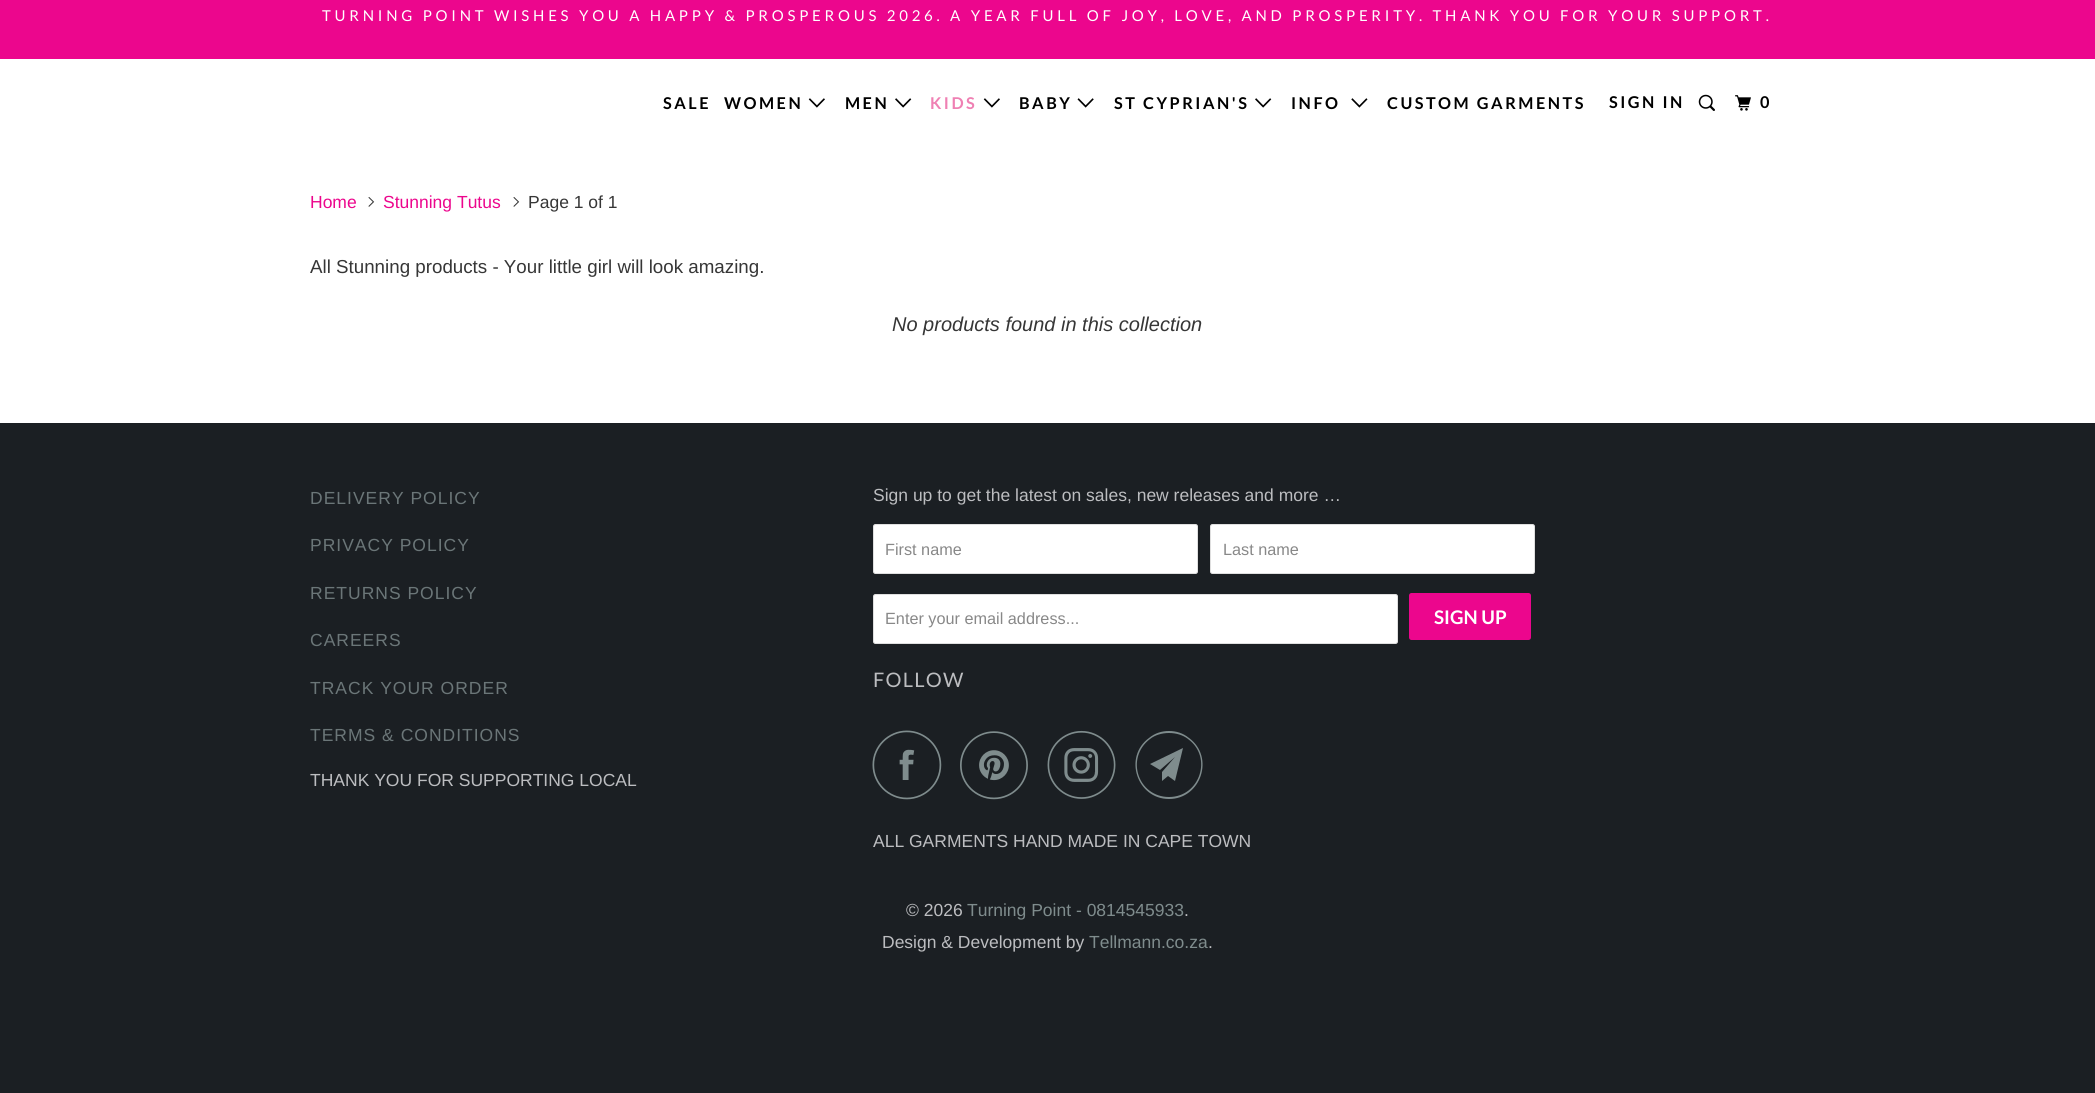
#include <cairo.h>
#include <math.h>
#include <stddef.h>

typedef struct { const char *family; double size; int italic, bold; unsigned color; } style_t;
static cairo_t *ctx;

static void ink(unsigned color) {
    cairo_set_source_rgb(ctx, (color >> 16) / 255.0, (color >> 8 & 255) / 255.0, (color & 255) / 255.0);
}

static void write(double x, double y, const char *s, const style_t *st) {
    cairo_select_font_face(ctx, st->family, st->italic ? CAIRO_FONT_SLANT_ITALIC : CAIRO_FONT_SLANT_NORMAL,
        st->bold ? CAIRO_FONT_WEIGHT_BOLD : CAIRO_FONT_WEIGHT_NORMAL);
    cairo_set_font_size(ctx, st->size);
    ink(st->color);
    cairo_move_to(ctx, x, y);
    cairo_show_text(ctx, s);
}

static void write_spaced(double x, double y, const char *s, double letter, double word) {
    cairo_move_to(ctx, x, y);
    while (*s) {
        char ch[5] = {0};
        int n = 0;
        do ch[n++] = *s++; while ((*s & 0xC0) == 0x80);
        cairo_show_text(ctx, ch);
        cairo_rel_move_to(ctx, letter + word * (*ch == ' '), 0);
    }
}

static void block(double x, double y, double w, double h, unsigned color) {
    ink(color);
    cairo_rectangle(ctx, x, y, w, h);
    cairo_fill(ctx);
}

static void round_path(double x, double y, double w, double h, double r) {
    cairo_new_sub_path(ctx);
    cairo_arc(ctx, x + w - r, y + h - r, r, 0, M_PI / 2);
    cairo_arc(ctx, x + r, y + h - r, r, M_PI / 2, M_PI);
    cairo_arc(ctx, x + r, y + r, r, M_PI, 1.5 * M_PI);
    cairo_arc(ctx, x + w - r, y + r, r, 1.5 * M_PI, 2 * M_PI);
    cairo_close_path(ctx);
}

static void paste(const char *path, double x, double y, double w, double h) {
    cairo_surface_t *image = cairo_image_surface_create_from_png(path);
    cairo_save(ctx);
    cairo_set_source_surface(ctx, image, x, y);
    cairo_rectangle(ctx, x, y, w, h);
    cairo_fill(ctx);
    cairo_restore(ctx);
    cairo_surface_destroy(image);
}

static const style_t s1 = {"Liberation Sans", 17.5, 0, 0, 0xec068d};
static const style_t s2 = {"Liberation Sans", 17.5, 0, 0, 0x363636};
static const style_t s3 = {"Liberation Sans", 18.75, 0, 0, 0x363636};
static const style_t s4 = {"Liberation Sans", 20, 1, 0, 0x363636};
static const style_t s5 = {"Liberation Sans", 17.5, 0, 0, 0xbcbdc0};
static const style_t s6 = {"Liberation Sans", 16.25, 0, 0, 0x888888};
static const style_t s7 = {"Lato", 18.75, 0, 1, 0xffffff};
static const style_t s8 = {"Liberation Sans", 17.5, 0, 0, 0x7f8c8d};

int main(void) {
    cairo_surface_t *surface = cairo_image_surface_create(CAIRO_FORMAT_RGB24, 2095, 1093);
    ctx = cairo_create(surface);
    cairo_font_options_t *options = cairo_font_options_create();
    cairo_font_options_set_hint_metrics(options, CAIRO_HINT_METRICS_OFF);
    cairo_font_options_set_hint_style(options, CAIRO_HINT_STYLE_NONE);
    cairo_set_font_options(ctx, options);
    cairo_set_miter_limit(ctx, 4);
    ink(0x1b1f23);
    cairo_paint(ctx);
    block(0, 59, 2095, 364, 0xffffff);
    block(0, 0, 2095, 59, 0xec068d);
    cairo_select_font_face(ctx, "Lato", CAIRO_FONT_SLANT_NORMAL, CAIRO_FONT_WEIGHT_NORMAL);
    cairo_set_font_size(ctx, 15);
    ink(0xffffff);
    write_spaced(322, 21, "TURNING POINT WISHES YOU A HAPPY & PROSPEROUS 2026. A YEAR FULL OF JOY, LOVE, AND PROSPERITY. THANK YOU FOR YOUR SUPPORT.", 3.75, 0);
    cairo_select_font_face(ctx, "Lato", CAIRO_FONT_SLANT_NORMAL, CAIRO_FONT_WEIGHT_BOLD);
    cairo_set_font_size(ctx, 16.25);
    ink(0x000000);
    write_spaced(663, 109, "SALE", 2.5, 0);
    write_spaced(724, 109, "WOMEN", 2.5, 0);
    paste("pic1.png", 808, 98, 17, 10);
    write_spaced(845, 109, "MEN", 2.5, 0);
    paste("pic2.png", 895, 98, 17, 10);
    ink(0xef80b3);
    write_spaced(930, 109, "KIDS", 2.5, 0);
    paste("pic1.png", 983, 98, 17, 10);
    ink(0x000000);
    write_spaced(1019, 109, "BABY", 2.5, 0);
    paste("pic3.png", 1077, 98, 17, 10);
    write_spaced(1114, 109, "ST CYPRIAN'S", 2.5, 0);
    paste("pic2.png", 1255, 98, 17, 10);
    write_spaced(1291, 109, "INFO", 2.5, 0);
    paste("pic4.png", 1351, 98, 17, 10);
    write_spaced(1387, 109, "CUSTOM GARMENTS", 2.5, 0);
    write_spaced(1609, 108, "SIGN IN", 2.5, 0);
    paste("pic5.png", 1698, 94, 17, 17);
    paste("pic6.png", 1735, 95, 16, 16);
    write_spaced(1760, 108, "0", 2.5, 0);
    write(310, 208, "Home", &s1);
    paste("pic7.png", 368, 197, 7, 10);
    write(383, 208, "Stunning Tutus", &s1);
    paste("pic7.png", 513, 197, 7, 10);
    write(528, 208, "Page 1 of 1", &s2);
    write(310, 273, "All Stunning products - Your little girl will look amazing.", &s3);
    write(892, 331, "No products found in this collection", &s4);
    cairo_select_font_face(ctx, "Liberation Sans", CAIRO_FONT_SLANT_NORMAL, CAIRO_FONT_WEIGHT_NORMAL);
    cairo_set_font_size(ctx, 17.5);
    ink(0x6b7678);
    write_spaced(310, 504, "DELIVERY POLICY", 1, 0);
    write_spaced(310, 551, "PRIVACY POLICY", 1, 0);
    write_spaced(310, 599, "RETURNS POLICY", 1, 0);
    write_spaced(310, 646, "CAREERS", 1, 0);
    write_spaced(310, 694, "TRACK YOUR ORDER", 1, 0);
    write_spaced(310, 741, "TERMS & CONDITIONS", 1, 0);
    write(310, 786, "THANK YOU FOR SUPPORTING LOCAL", &s5);
    write(873, 501, "Sign up to get the latest on sales, new releases and more …", &s5);
    ink(0xffffff);
    round_path(873.5, 524.5, 324, 49, 2);
    cairo_fill_preserve(ctx);
    ink(0xdfdfdf);
    cairo_set_line_width(ctx, 1);
    cairo_stroke(ctx);
    write(885, 555, "First name", &s6);
    ink(0xffffff);
    round_path(1210.5, 524.5, 324, 49, 2);
    cairo_fill_preserve(ctx);
    ink(0xdfdfdf);
    cairo_stroke(ctx);
    write(1223, 555, "Last name", &s6);
    ink(0xffffff);
    round_path(873.5, 594.5, 524, 49, 2);
    cairo_fill_preserve(ctx);
    ink(0xdfdfdf);
    cairo_stroke(ctx);
    write(885, 624, "Enter your email address...", &s6);
    ink(0xec068d);
    round_path(1409, 593, 122, 47, 2.5);
    cairo_fill(ctx);
    write(1434, 624, "SIGN UP", &s7);
    cairo_select_font_face(ctx, "Lato", CAIRO_FONT_SLANT_NORMAL, CAIRO_FONT_WEIGHT_NORMAL);
    cairo_set_font_size(ctx, 20);
    ink(0xbcbdc0);
    write_spaced(873, 687, "FOLLOW", 1.25, 0);
    paste("pic8.png", 872, 730, 70, 70);
    paste("pic9.png", 960, 731, 68, 69);
    paste("pic10.png", 1047, 730, 69, 69);
    ink(0x7f8c8d);
    cairo_new_path(ctx);
    cairo_move_to(ctx, 1175, 781);
    cairo_line_to(ctx, 1168, 776);
    cairo_line_to(ctx, 1162, 781);
    cairo_line_to(ctx, 1162, 772);
    cairo_line_to(ctx, 1175, 757);
    cairo_line_to(ctx, 1160, 770);
    cairo_line_to(ctx, 1150, 764);
    cairo_line_to(ctx, 1183, 748);
    cairo_close_path(ctx);
    cairo_move_to(ctx, 1169, 733);
    cairo_curve_to(ctx, 1162, 733, 1155, 735, 1150, 739);
    cairo_curve_to(ctx, 1125, 758, 1138, 797, 1169, 797);
    cairo_curve_to(ctx, 1200, 797, 1213, 757, 1188, 739);
    cairo_curve_to(ctx, 1183, 735, 1176, 733, 1169, 733);
    cairo_close_path(ctx);
    cairo_move_to(ctx, 1169, 799);
    cairo_curve_to(ctx, 1137, 799, 1123, 757, 1149, 738);
    cairo_curve_to(ctx, 1155, 733, 1162, 731, 1169, 731);
    cairo_curve_to(ctx, 1176, 731, 1183, 733, 1189, 738);
    cairo_curve_to(ctx, 1215, 757, 1201, 799, 1169, 799);
    cairo_close_path(ctx);
    cairo_fill(ctx);
    write(873, 847, "ALL GARMENTS HAND MADE IN CAPE TOWN", &s5);
    write(906, 916, "© 2026", &s5);
    write(967, 916, "Turning Point - 0814545933", &s8);
    write(1184, 916, ".", &s5);
    write(882, 948, "Design & Development by", &s5);
    write(1089, 948, "Tellmann.co.za", &s8);
    write(1208, 948, ".", &s5);
    cairo_surface_write_to_png(surface, "screenshot.png");
    cairo_font_options_destroy(options);
    cairo_destroy(ctx);
    cairo_surface_destroy(surface);
    return 0;
}
